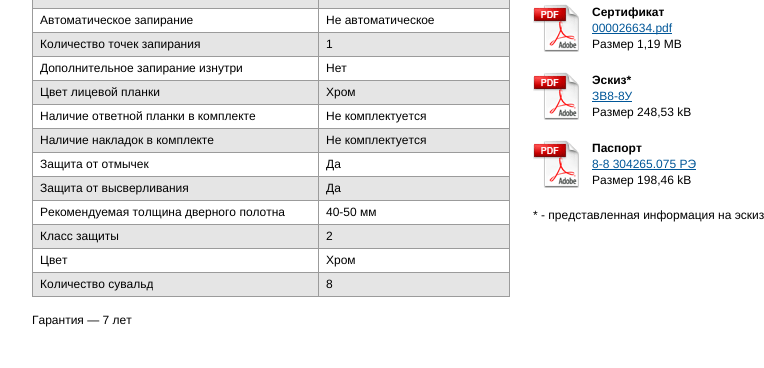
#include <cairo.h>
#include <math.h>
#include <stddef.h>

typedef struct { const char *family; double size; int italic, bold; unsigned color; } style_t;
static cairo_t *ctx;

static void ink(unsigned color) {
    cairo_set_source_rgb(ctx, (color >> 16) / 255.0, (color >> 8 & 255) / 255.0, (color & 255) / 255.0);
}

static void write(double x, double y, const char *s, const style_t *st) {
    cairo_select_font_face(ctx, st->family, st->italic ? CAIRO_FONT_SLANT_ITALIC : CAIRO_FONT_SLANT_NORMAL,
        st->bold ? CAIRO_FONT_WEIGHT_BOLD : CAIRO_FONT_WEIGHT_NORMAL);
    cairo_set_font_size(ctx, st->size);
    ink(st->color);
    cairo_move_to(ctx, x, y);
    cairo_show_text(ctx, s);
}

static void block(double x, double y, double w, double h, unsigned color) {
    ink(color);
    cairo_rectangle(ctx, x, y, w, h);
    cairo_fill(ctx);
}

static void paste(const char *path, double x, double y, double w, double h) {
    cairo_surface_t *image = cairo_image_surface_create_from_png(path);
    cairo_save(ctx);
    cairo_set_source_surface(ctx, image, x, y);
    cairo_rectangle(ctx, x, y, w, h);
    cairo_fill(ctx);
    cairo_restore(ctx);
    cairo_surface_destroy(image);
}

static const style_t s1 = {"Liberation Sans", 12, 0, 0, 0x000000};
static const style_t s2 = {"Liberation Sans", 12, 0, 1, 0x000000};
static const style_t s3 = {"Liberation Sans", 12, 0, 0, 0x005698};

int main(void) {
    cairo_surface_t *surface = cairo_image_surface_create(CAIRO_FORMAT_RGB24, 764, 368);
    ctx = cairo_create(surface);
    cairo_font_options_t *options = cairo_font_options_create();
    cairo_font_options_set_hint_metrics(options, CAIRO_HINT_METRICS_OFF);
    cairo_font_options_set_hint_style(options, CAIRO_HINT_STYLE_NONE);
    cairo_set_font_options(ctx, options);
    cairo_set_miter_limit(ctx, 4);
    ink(0xffffff);
    cairo_paint(ctx);
    block(33, 0, 285, 8, 0xe5e5e5);
    block(319, 0, 190, 8, 0xe5e5e5);
    block(318, 8, 192, 1, 0x9b9b9b);
    block(318, 32, 192, 1, 0x9b9b9b);
    block(318, 56, 192, 1, 0x9b9b9b);
    block(318, 80, 192, 1, 0x9b9b9b);
    block(318, 104, 192, 1, 0x9b9b9b);
    block(318, 128, 192, 1, 0x9b9b9b);
    block(318, 152, 192, 1, 0x9b9b9b);
    block(318, 176, 192, 1, 0x9b9b9b);
    block(318, 200, 192, 1, 0x9b9b9b);
    block(318, 224, 192, 1, 0x9b9b9b);
    block(318, 248, 192, 1, 0x9b9b9b);
    block(318, 272, 192, 1, 0x9b9b9b);
    block(509, 272, 1, 25, 0x9b9b9b);
    block(318, 296, 192, 1, 0x9b9b9b);
    block(318, 272, 1, 25, 0x9b9b9b);
    block(32, 272, 287, 1, 0x9b9b9b);
    block(318, 248, 1, 25, 0x9b9b9b);
    block(32, 248, 287, 1, 0x9b9b9b);
    block(318, 224, 1, 25, 0x9b9b9b);
    block(32, 224, 287, 1, 0x9b9b9b);
    block(318, 200, 1, 25, 0x9b9b9b);
    block(32, 200, 287, 1, 0x9b9b9b);
    block(318, 176, 1, 25, 0x9b9b9b);
    block(32, 176, 287, 1, 0x9b9b9b);
    block(318, 152, 1, 25, 0x9b9b9b);
    block(32, 152, 287, 1, 0x9b9b9b);
    block(318, 128, 1, 25, 0x9b9b9b);
    block(32, 128, 287, 1, 0x9b9b9b);
    block(318, 104, 1, 25, 0x9b9b9b);
    block(32, 104, 287, 1, 0x9b9b9b);
    block(318, 80, 1, 25, 0x9b9b9b);
    block(32, 80, 287, 1, 0x9b9b9b);
    block(318, 56, 1, 25, 0x9b9b9b);
    block(32, 56, 287, 1, 0x9b9b9b);
    block(318, 32, 1, 25, 0x9b9b9b);
    block(32, 32, 287, 1, 0x9b9b9b);
    block(318, 8, 1, 25, 0x9b9b9b);
    block(32, 8, 287, 1, 0x9b9b9b);
    block(318, 0, 1, 9, 0x9b9b9b);
    block(32, 296, 287, 1, 0x9b9b9b);
    block(32, 272, 1, 25, 0x9b9b9b);
    block(32, 248, 1, 25, 0x9b9b9b);
    block(32, 224, 1, 25, 0x9b9b9b);
    block(32, 200, 1, 25, 0x9b9b9b);
    block(32, 176, 1, 25, 0x9b9b9b);
    block(32, 152, 1, 25, 0x9b9b9b);
    block(32, 128, 1, 25, 0x9b9b9b);
    block(32, 104, 1, 25, 0x9b9b9b);
    block(32, 80, 1, 25, 0x9b9b9b);
    block(32, 56, 1, 25, 0x9b9b9b);
    block(32, 32, 1, 25, 0x9b9b9b);
    block(32, 0, 1, 33, 0x9b9b9b);
    write(40, 24, "Автоматическое запирание", &s1);
    block(509, 248, 1, 25, 0x9b9b9b);
    block(509, 224, 1, 25, 0x9b9b9b);
    block(509, 200, 1, 25, 0x9b9b9b);
    block(509, 176, 1, 25, 0x9b9b9b);
    block(509, 152, 1, 25, 0x9b9b9b);
    block(509, 128, 1, 25, 0x9b9b9b);
    block(509, 104, 1, 25, 0x9b9b9b);
    block(509, 80, 1, 25, 0x9b9b9b);
    block(509, 56, 1, 25, 0x9b9b9b);
    block(509, 32, 1, 25, 0x9b9b9b);
    block(509, 0, 1, 33, 0x9b9b9b);
    write(326, 24, "Не автоматическое", &s1);
    block(33, 33, 285, 23, 0xe5e5e5);
    write(40, 48, "Количество точек запирания", &s1);
    block(319, 33, 190, 23, 0xe5e5e5);
    write(326, 48, "1", &s1);
    write(40, 72, "Дополнительное запирание изнутри", &s1);
    write(326, 72, "Нет", &s1);
    block(33, 81, 285, 23, 0xe5e5e5);
    write(40, 96, "Цвет лицевой планки", &s1);
    block(319, 81, 190, 23, 0xe5e5e5);
    write(326, 96, "Хром", &s1);
    write(40, 120, "Наличие ответной планки в комплекте", &s1);
    write(326, 120, "Не комплектуется", &s1);
    block(33, 129, 285, 23, 0xe5e5e5);
    write(40, 144, "Наличие накладок в комплекте", &s1);
    block(319, 129, 190, 23, 0xe5e5e5);
    write(326, 144, "Не комплектуется", &s1);
    write(40, 168, "Защита от отмычек", &s1);
    write(326, 168, "Да", &s1);
    block(33, 177, 285, 23, 0xe5e5e5);
    write(40, 192, "Защита от высверливания", &s1);
    block(319, 177, 190, 23, 0xe5e5e5);
    write(326, 192, "Да", &s1);
    write(40, 216, "Рекомендуемая толщина дверного полотна", &s1);
    write(326, 216, "40-50 мм", &s1);
    block(33, 225, 285, 23, 0xe5e5e5);
    write(40, 240, "Класс защиты", &s1);
    block(319, 225, 190, 23, 0xe5e5e5);
    write(326, 240, "2", &s1);
    write(40, 264, "Цвет", &s1);
    write(326, 264, "Хром", &s1);
    block(33, 273, 285, 23, 0xe5e5e5);
    write(40, 288, "Количество сувальд", &s1);
    block(319, 273, 190, 23, 0xe5e5e5);
    write(326, 288, "8", &s1);
    write(32, 324, "Гарантия — 7 лет", &s1);
    paste("pic1.png", 533, 4, 46, 48);
    write(592, 16, "Сертификат", &s2);
    block(592, 33, 80, 1, 0x005698);
    write(592, 32, "000026634.pdf", &s3);
    write(592, 48, "Размер 1,19 MB", &s1);
    paste("pic1.png", 533, 72, 46, 48);
    write(592, 84, "Эскиз*", &s2);
    write(592, 100, "ЗВ8-8У", &s3);
    block(592, 101, 40, 1, 0x005698);
    write(592, 116, "Размер 248,53 kB", &s1);
    paste("pic1.png", 533, 140, 46, 48);
    write(592, 152, "Паспорт", &s2);
    write(592, 168, "8-8 304265.075 РЭ", &s3);
    block(592, 169, 104, 1, 0x005698);
    write(592, 184, "Размер 198,46 kB", &s1);
    write(533, 219, "* - представленная информация на эскиз", &s1);
    cairo_surface_write_to_png(surface, "screenshot.png");
    cairo_font_options_destroy(options);
    cairo_destroy(ctx);
    cairo_surface_destroy(surface);
    return 0;
}
